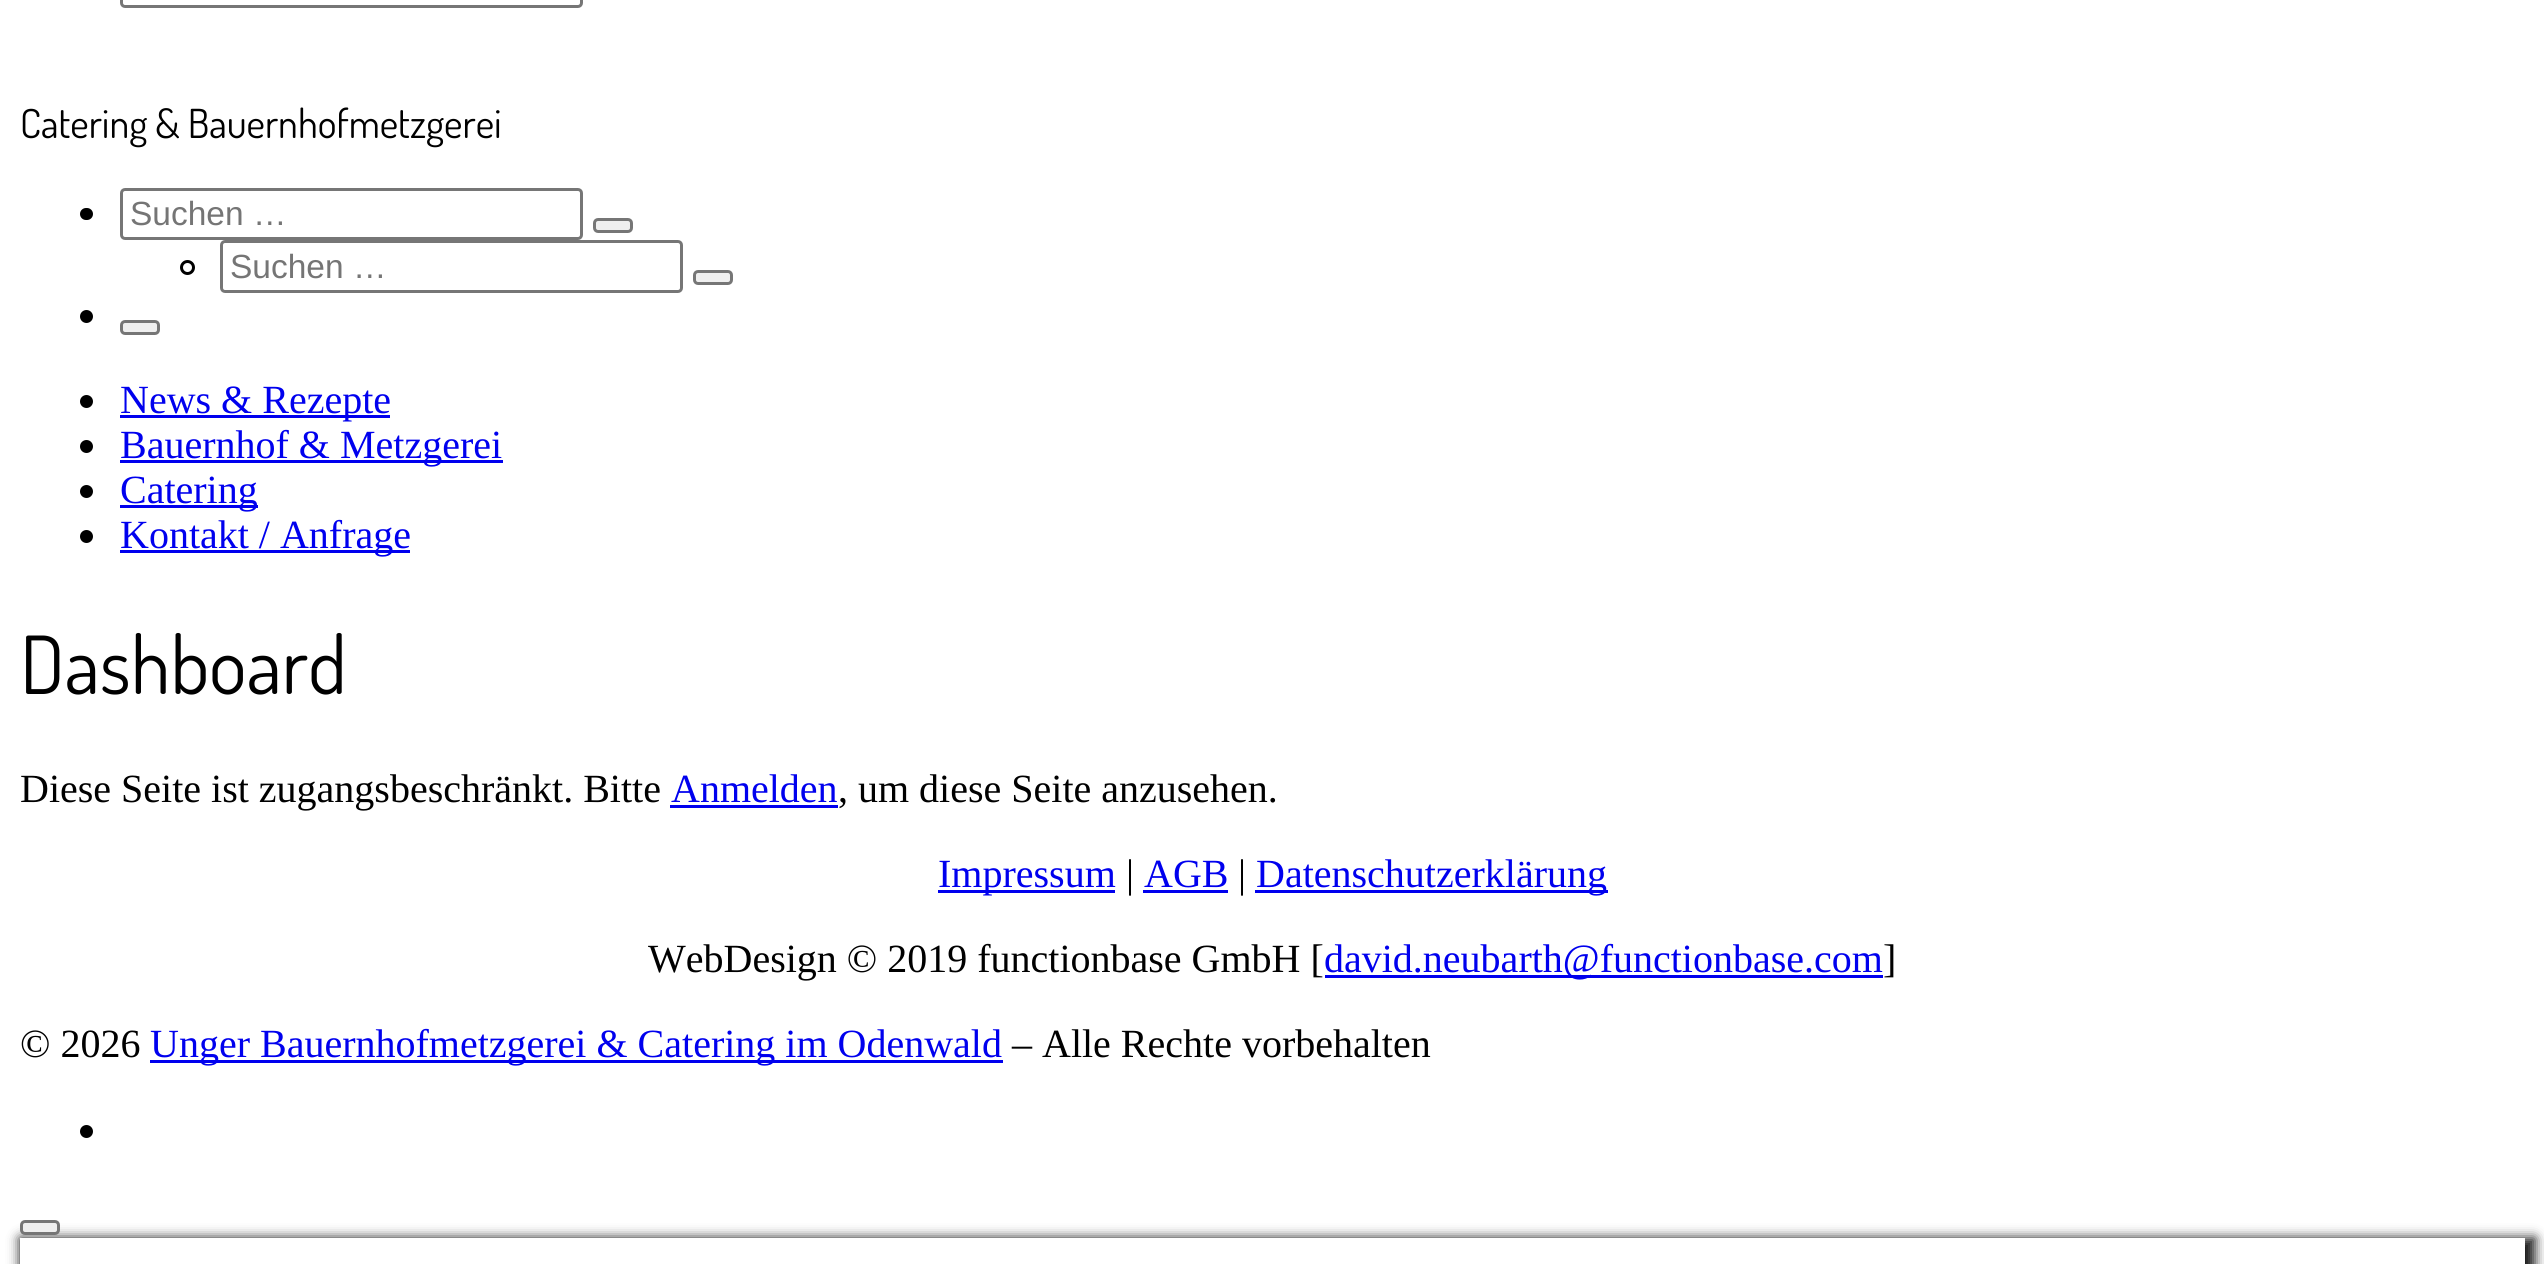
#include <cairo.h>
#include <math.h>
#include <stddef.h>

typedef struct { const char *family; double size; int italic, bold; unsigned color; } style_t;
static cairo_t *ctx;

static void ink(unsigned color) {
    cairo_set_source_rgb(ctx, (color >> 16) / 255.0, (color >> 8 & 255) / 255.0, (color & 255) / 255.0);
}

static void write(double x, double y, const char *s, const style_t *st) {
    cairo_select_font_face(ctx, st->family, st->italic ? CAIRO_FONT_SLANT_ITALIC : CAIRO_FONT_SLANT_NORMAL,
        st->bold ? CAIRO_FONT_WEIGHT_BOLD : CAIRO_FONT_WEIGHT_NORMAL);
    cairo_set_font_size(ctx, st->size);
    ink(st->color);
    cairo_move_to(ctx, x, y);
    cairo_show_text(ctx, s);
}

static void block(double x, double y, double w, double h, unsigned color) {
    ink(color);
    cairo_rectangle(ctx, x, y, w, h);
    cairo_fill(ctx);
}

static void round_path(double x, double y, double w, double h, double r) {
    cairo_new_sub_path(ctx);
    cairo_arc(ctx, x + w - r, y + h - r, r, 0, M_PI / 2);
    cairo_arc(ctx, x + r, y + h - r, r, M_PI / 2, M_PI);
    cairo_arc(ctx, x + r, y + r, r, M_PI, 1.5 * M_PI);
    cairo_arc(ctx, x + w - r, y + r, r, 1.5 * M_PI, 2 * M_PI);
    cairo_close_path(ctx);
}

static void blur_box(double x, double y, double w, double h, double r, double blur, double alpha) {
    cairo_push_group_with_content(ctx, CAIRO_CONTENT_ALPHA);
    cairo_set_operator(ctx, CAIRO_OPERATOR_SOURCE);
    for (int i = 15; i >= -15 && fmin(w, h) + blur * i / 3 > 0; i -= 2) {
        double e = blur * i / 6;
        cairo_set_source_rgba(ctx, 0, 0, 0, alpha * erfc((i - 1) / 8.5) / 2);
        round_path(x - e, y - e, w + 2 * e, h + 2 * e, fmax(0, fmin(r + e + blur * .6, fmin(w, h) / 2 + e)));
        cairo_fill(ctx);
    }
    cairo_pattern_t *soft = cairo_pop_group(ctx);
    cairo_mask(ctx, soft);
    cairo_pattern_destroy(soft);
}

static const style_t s1 = {"Dosis", 40, 0, 0, 0x000000};
static const style_t s2 = {"Liberation Sans", 33.5, 0, 0, 0x757575};
static const style_t s3 = {"Liberation Serif", 40, 0, 0, 0x0000ee};
static const style_t s4 = {"Dosis", 80, 0, 0, 0x000000};
static const style_t s5 = {"Liberation Serif", 40, 0, 0, 0x000000};

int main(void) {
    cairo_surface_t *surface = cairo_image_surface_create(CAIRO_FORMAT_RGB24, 2544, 1264);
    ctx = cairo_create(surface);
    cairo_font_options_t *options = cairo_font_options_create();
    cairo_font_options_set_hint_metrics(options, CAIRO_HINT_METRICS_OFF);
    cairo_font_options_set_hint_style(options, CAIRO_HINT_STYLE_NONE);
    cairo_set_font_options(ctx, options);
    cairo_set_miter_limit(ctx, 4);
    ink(0xffffff);
    cairo_paint(ctx);
    round_path(121.5, -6.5, 460, 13, 3.5);
    ink(0x767676);
    cairo_set_line_width(ctx, 3);
    cairo_stroke(ctx);
    write(20, 138, "Catering & Bauernhofmetzgerei", &s1);
    round_path(80, 208, 13, 12, 6);
    cairo_fill(ctx);
    round_path(121.5, 189.5, 460, 49, 3.5);
    ink(0x767676);
    cairo_stroke(ctx);
    write(130, 225, "Suchen …", &s2);
    ink(0xefefef);
    round_path(594.5, 219.5, 37, 12, 3.5);
    cairo_fill_preserve(ctx);
    ink(0x767676);
    cairo_stroke(ctx);
    cairo_arc(ctx, 187.5, 267.5, 6, 0, 2 * M_PI);
    ink(0x000000);
    cairo_stroke(ctx);
    round_path(221.5, 241.5, 460, 50, 3.5);
    ink(0x767676);
    cairo_stroke(ctx);
    write(230, 278, "Suchen …", &s2);
    ink(0xefefef);
    round_path(694.5, 271.5, 37, 12, 3.5);
    cairo_fill_preserve(ctx);
    ink(0x767676);
    cairo_stroke(ctx);
    ink(0x000000);
    cairo_arc(ctx, 86.5, 316.5, 6.5, 0, 2 * M_PI);
    cairo_fill(ctx);
    ink(0xefefef);
    round_path(121.5, 321.5, 37, 12, 3.5);
    cairo_fill_preserve(ctx);
    ink(0x767676);
    cairo_stroke(ctx);
    ink(0x000000);
    cairo_arc(ctx, 86.5, 401.5, 6.5, 0, 2 * M_PI);
    cairo_fill(ctx);
    block(120, 415, 270, 3, 0x0000ee);
    write(120, 413, "News & Rezepte", &s3);
    ink(0x000000);
    cairo_new_path(ctx);
    cairo_arc(ctx, 86.5, 446.5, 6.5, 0, 2 * M_PI);
    cairo_fill(ctx);
    block(120, 460, 383, 3, 0x0000ee);
    write(120, 458, "Bauernhof & Metzgerei", &s3);
    ink(0x000000);
    cairo_new_path(ctx);
    cairo_arc(ctx, 86.5, 491.5, 6.5, 0, 2 * M_PI);
    cairo_fill(ctx);
    block(120, 505, 138, 3, 0x0000ee);
    write(120, 503, "Catering", &s3);
    ink(0x000000);
    cairo_new_path(ctx);
    cairo_arc(ctx, 86.5, 536.5, 6.5, 0, 2 * M_PI);
    cairo_fill(ctx);
    block(120, 550, 290, 3, 0x0000ee);
    write(120, 548, "Kontakt / Anfrage", &s3);
    write(20, 694, "Dashboard", &s4);
    write(20, 802, "Diese Seite ist zugangsbeschränkt. Bitte", &s5);
    write(671, 802, "Anmelden", &s3);
    block(670, 805, 168, 3, 0x0000ee);
    write(838, 802, ", um diese Seite anzusehen.", &s5);
    block(938, 890, 177, 3, 0x0000ee);
    write(938, 887, "Impressum", &s3);
    write(1126, 887, "|", &s5);
    write(1144, 887, "AGB", &s3);
    block(1143, 890, 85, 3, 0x0000ee);
    write(1238, 887, "|", &s5);
    block(1255, 890, 353, 3, 0x0000ee);
    write(1256, 887, "Datenschutzerklärung", &s3);
    write(648, 972, "WebDesign © 2019 functionbase GmbH [", &s5);
    block(1325, 975, 558, 3, 0x0000ee);
    write(1324, 972, "david.neubarth@functionbase.com", &s3);
    write(1883, 972, "]", &s5);
    write(20, 1057, "© 2026", &s5);
    block(150, 1060, 853, 3, 0x0000ee);
    write(150, 1057, "Unger Bauernhofmetzgerei & Catering im Odenwald", &s3);
    write(1012, 1057, "– Alle Rechte vorbehalten", &s5);
    cairo_new_path(ctx);
    cairo_arc(ctx, 86.5, 1131.5, 6.5, 0, 2 * M_PI);
    cairo_fill(ctx);
    cairo_save(ctx);
    cairo_set_fill_rule(ctx, CAIRO_FILL_RULE_EVEN_ODD);
    cairo_new_path(ctx);
    cairo_move_to(ctx, 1, 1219);
    cairo_line_to(ctx, 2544, 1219);
    cairo_line_to(ctx, 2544, 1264);
    cairo_line_to(ctx, 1, 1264);
    cairo_close_path(ctx);
    cairo_move_to(ctx, 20, 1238);
    cairo_line_to(ctx, 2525, 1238);
    cairo_line_to(ctx, 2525, 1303);
    cairo_line_to(ctx, 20, 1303);
    cairo_close_path(ctx);
    cairo_clip(ctx);
    ink(0x161616);
    blur_box(20, 1238, 2515, 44, 0, 6, 1);
    cairo_restore(ctx);
    ink(0xefefef);
    round_path(21.5, 1221.5, 37, 12, 3.5);
    cairo_fill_preserve(ctx);
    ink(0x767676);
    cairo_stroke(ctx);
    cairo_surface_write_to_png(surface, "screenshot.png");
    cairo_font_options_destroy(options);
    cairo_destroy(ctx);
    cairo_surface_destroy(surface);
    return 0;
}
